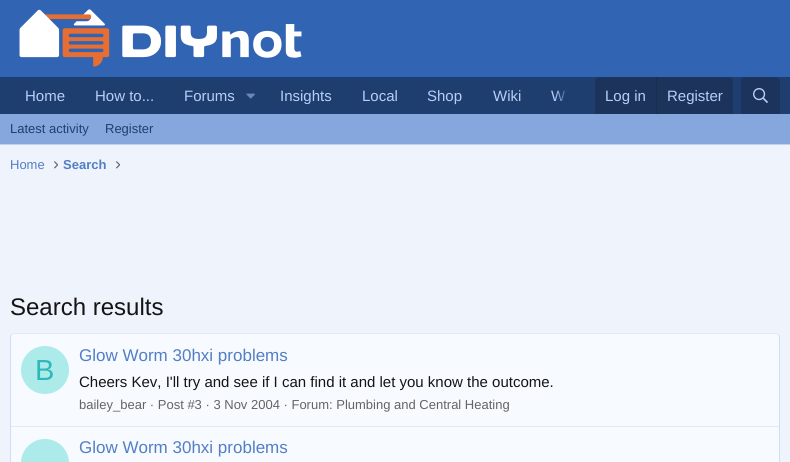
#include <cairo.h>
#include <math.h>
#include <stddef.h>

typedef struct { const char *family; double size; int italic, bold; unsigned color; } style_t;
static cairo_t *ctx;

static void ink(unsigned color) {
    cairo_set_source_rgb(ctx, (color >> 16) / 255.0, (color >> 8 & 255) / 255.0, (color & 255) / 255.0);
}

static void write(double x, double y, const char *s, const style_t *st) {
    cairo_select_font_face(ctx, st->family, st->italic ? CAIRO_FONT_SLANT_ITALIC : CAIRO_FONT_SLANT_NORMAL,
        st->bold ? CAIRO_FONT_WEIGHT_BOLD : CAIRO_FONT_WEIGHT_NORMAL);
    cairo_set_font_size(ctx, st->size);
    ink(st->color);
    cairo_move_to(ctx, x, y);
    cairo_show_text(ctx, s);
}

static void block(double x, double y, double w, double h, unsigned color) {
    ink(color);
    cairo_rectangle(ctx, x, y, w, h);
    cairo_fill(ctx);
}

static void round_path(double x, double y, double w, double h, double r) {
    cairo_new_sub_path(ctx);
    cairo_arc(ctx, x + w - r, y + h - r, r, 0, M_PI / 2);
    cairo_arc(ctx, x + r, y + h - r, r, M_PI / 2, M_PI);
    cairo_arc(ctx, x + r, y + r, r, M_PI, 1.5 * M_PI);
    cairo_arc(ctx, x + w - r, y + r, r, 1.5 * M_PI, 2 * M_PI);
    cairo_close_path(ctx);
}

static void paste(const char *path, double x, double y, double w, double h) {
    cairo_surface_t *image = cairo_image_surface_create_from_png(path);
    cairo_save(ctx);
    cairo_set_source_surface(ctx, image, x, y);
    cairo_rectangle(ctx, x, y, w, h);
    cairo_fill(ctx);
    cairo_restore(ctx);
    cairo_surface_destroy(image);
}

static const style_t s1 = {"Liberation Sans", 15, 0, 0, 0xb8cff5};
static const style_t s2 = {"Liberation Sans", 13, 0, 0, 0x1f3e70};
static const style_t s3 = {"Liberation Sans", 13, 0, 0, 0x527ec5};
static const style_t s4 = {"Liberation Sans", 13, 0, 1, 0x527ec5};
static const style_t s5 = {"Liberation Sans", 24, 0, 0, 0x141414};
static const style_t s6 = {"Liberation Sans", 29, 0, 0, 0x2eb8b8};
static const style_t s7 = {"Liberation Sans", 17, 0, 0, 0x527ec5};
static const style_t s8 = {"Liberation Sans", 15, 0, 0, 0x141414};
static const style_t s9 = {"Liberation Sans", 13, 0, 0, 0x646464};

int main(void) {
    cairo_surface_t *surface = cairo_image_surface_create(CAIRO_FORMAT_RGB24, 790, 462);
    ctx = cairo_create(surface);
    cairo_font_options_t *options = cairo_font_options_create();
    cairo_font_options_set_hint_metrics(options, CAIRO_HINT_METRICS_OFF);
    cairo_font_options_set_hint_style(options, CAIRO_HINT_STYLE_NONE);
    cairo_set_font_options(ctx, options);
    cairo_set_miter_limit(ctx, 4);
    cairo_pattern_t *gradient;
    ink(0xeff3fb);
    cairo_paint(ctx);
    block(0, 0, 790, 77, 0x3264b4);
    paste("pic1.png", 19, 9, 283, 58);
    block(0, 77, 790, 37, 0x1f3e70);
    write(25, 101, "Home", &s1);
    write(95, 101, "How to...", &s1);
    write(184, 101, "Forums", &s1);
    paste("pic2.png", 246, 93, 9, 6);
    write(280, 101, "Insights", &s1);
    write(362, 101, "Local", &s1);
    write(427, 101, "Shop", &s1);
    write(493, 101, "Wiki", &s1);
    write(551, 101, "W", &s1);
    gradient = cairo_pattern_create_linear(555, 96, 595, 96);
    cairo_pattern_add_color_stop_rgba(gradient, 0, 0.122, 0.243, 0.439, 0);
    cairo_pattern_add_color_stop_rgba(gradient, 0.33, 0.122, 0.243, 0.439, 1);
    cairo_set_source(ctx, gradient);
    cairo_pattern_destroy(gradient);
    cairo_rectangle(ctx, 555, 90, 10, 11);
    cairo_fill(ctx);
    ink(0x1c345b);
    cairo_new_path(ctx);
    cairo_move_to(ctx, 599, 77);
    cairo_line_to(ctx, 729, 77);
    cairo_curve_to(ctx, 731, 77, 733, 79, 733, 81);
    cairo_line_to(ctx, 733, 114);
    cairo_line_to(ctx, 595, 114);
    cairo_line_to(ctx, 595, 81);
    cairo_curve_to(ctx, 595, 79, 597, 77, 599, 77);
    cairo_close_path(ctx);
    cairo_fill(ctx);
    write(605, 101, "Log in", &s1);
    block(656, 77, 1, 37, 0x1a2d4b);
    write(667, 101, "Register", &s1);
    ink(0x1c345b);
    cairo_new_path(ctx);
    cairo_move_to(ctx, 745, 77);
    cairo_line_to(ctx, 776, 77);
    cairo_curve_to(ctx, 778, 77, 780, 79, 780, 81);
    cairo_line_to(ctx, 780, 114);
    cairo_line_to(ctx, 741, 114);
    cairo_line_to(ctx, 741, 81);
    cairo_curve_to(ctx, 741, 79, 743, 77, 745, 77);
    cairo_close_path(ctx);
    cairo_fill(ctx);
    paste("pic3.png", 753, 88, 15, 15);
    block(0, 114, 790, 30, 0x86a7dd);
    block(0, 144, 790, 1, 0xc0d1ee);
    write(10, 133, "Latest activity", &s2);
    write(105, 133, "Register", &s2);
    write(10, 169, "Home", &s3);
    paste("pic4.png", 54, 161, 4, 8);
    write(63, 169, "Search", &s4);
    paste("pic4.png", 116, 161, 4, 8);
    write(10, 315, "Search results", &s5);
    ink(0xf7faff);
    round_path(10, 333, 770, 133, 4);
    cairo_fill(ctx);
    cairo_new_path(ctx);
    cairo_move_to(ctx, 11.5, 334.5);
    cairo_line_to(ctx, 14, 333.5);
    cairo_line_to(ctx, 776, 333.5);
    cairo_line_to(ctx, 778.5, 334.5);
    ink(0xe0e9f6);
    cairo_set_line_width(ctx, 1);
    cairo_stroke(ctx);
    cairo_new_path(ctx);
    cairo_move_to(ctx, 778.5, 334.5);
    cairo_line_to(ctx, 779.5, 337);
    cairo_line_to(ctx, 779.5, 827);
    cairo_line_to(ctx, 778.5, 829.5);
    ink(0xd0ddf2);
    cairo_stroke(ctx);
    cairo_new_path(ctx);
    cairo_move_to(ctx, 11.5, 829.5);
    cairo_line_to(ctx, 10.5, 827);
    cairo_line_to(ctx, 10.5, 337);
    cairo_line_to(ctx, 11.5, 334.5);
    cairo_stroke(ctx);
    ink(0xadebeb);
    cairo_arc(ctx, 45, 370, 24, 0, 2 * M_PI);
    cairo_fill(ctx);
    write(35, 380, "B", &s6);
    write(79, 361, "Glow Worm 30hxi problems", &s7);
    write(79, 387, "Cheers Kev, I'll try and see if I can find it and let you know the outcome.", &s8);
    write(79, 409, "bailey_bear · Post #3 · 3 Nov 2004 · Forum: Plumbing and Central Heating", &s9);
    block(11, 426, 768, 1, 0xe0e9f6);
    ink(0xadebeb);
    round_path(21, 439, 48, 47, 24);
    cairo_fill(ctx);
    write(79, 453, "Glow Worm 30hxi problems", &s7);
    cairo_surface_write_to_png(surface, "screenshot.png");
    cairo_font_options_destroy(options);
    cairo_destroy(ctx);
    cairo_surface_destroy(surface);
    return 0;
}
